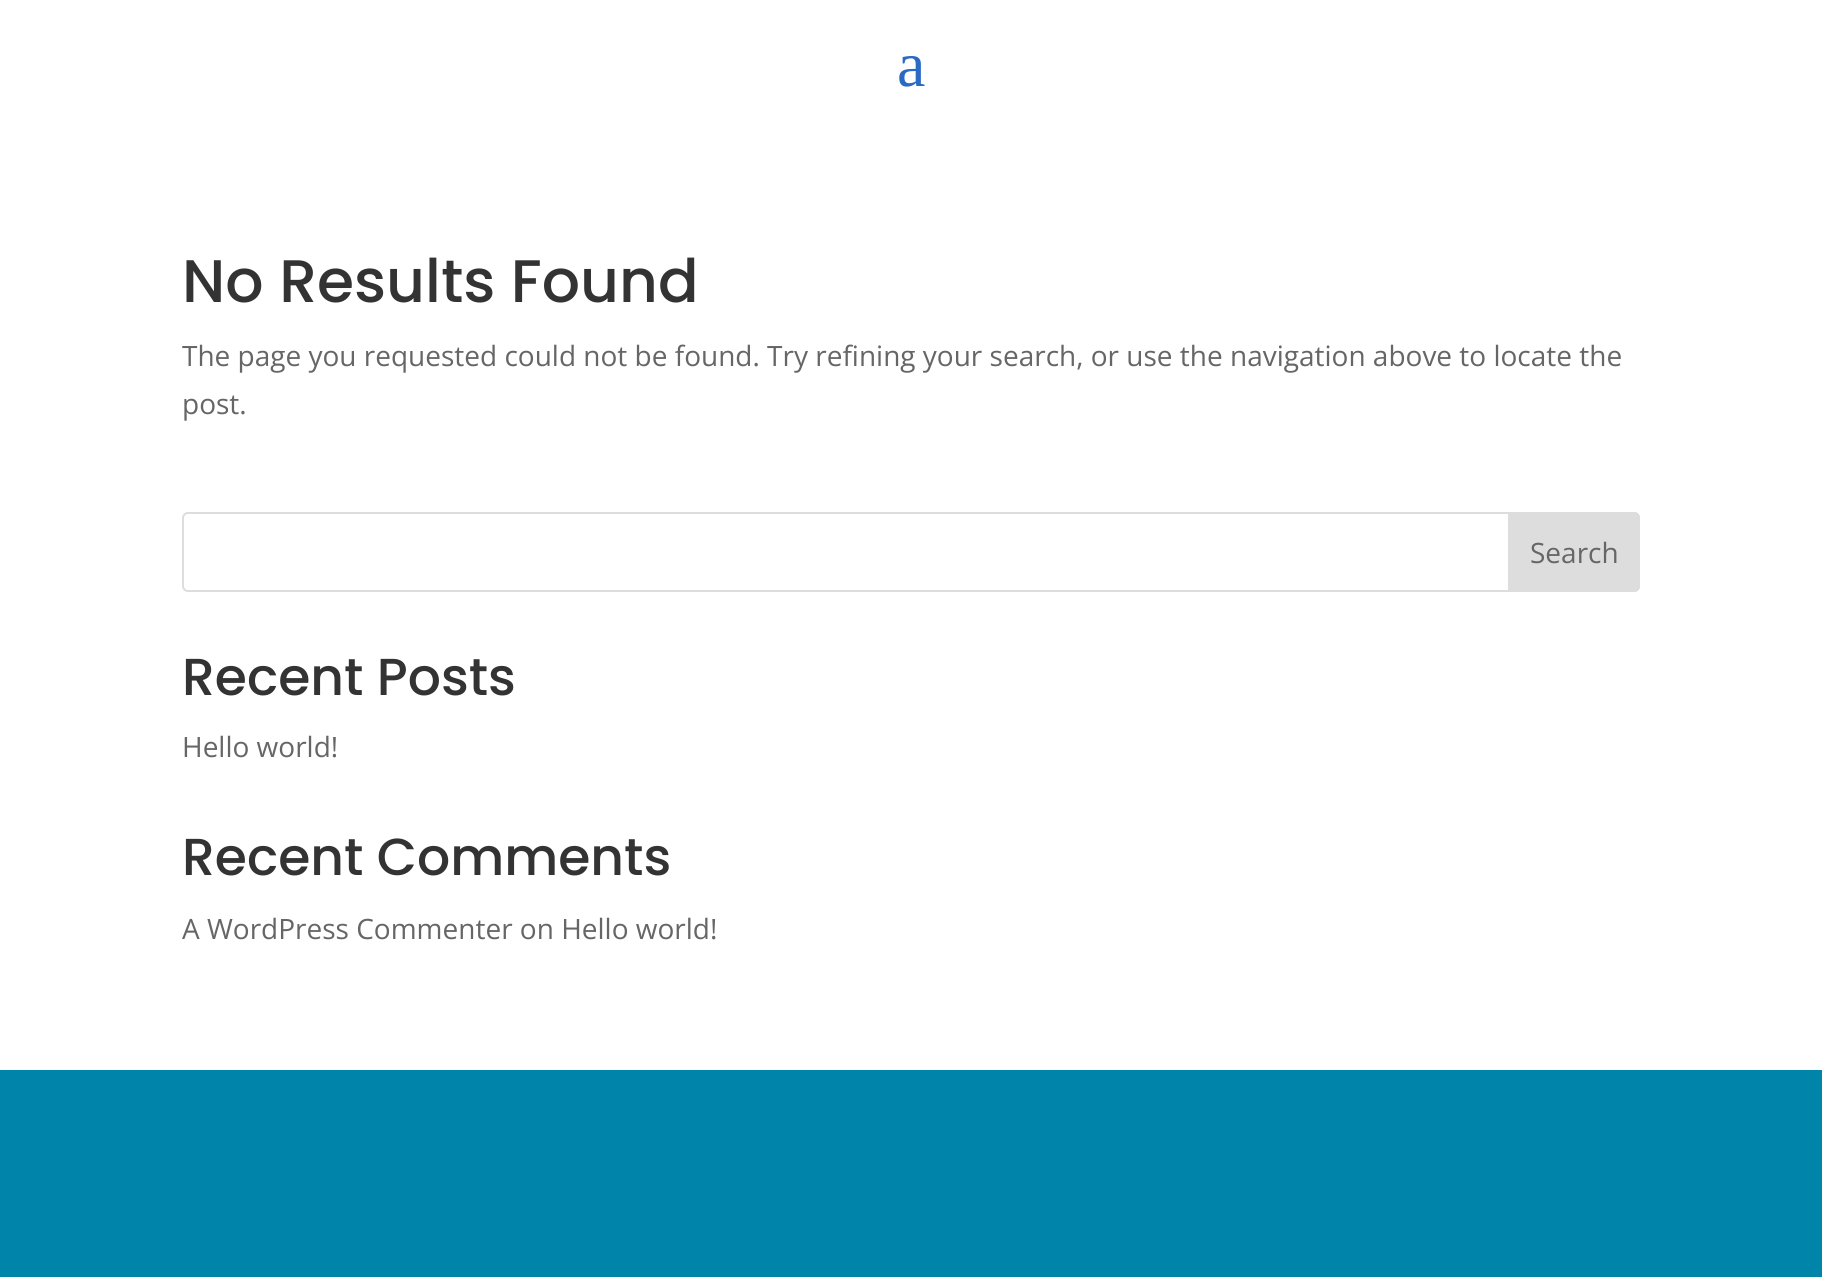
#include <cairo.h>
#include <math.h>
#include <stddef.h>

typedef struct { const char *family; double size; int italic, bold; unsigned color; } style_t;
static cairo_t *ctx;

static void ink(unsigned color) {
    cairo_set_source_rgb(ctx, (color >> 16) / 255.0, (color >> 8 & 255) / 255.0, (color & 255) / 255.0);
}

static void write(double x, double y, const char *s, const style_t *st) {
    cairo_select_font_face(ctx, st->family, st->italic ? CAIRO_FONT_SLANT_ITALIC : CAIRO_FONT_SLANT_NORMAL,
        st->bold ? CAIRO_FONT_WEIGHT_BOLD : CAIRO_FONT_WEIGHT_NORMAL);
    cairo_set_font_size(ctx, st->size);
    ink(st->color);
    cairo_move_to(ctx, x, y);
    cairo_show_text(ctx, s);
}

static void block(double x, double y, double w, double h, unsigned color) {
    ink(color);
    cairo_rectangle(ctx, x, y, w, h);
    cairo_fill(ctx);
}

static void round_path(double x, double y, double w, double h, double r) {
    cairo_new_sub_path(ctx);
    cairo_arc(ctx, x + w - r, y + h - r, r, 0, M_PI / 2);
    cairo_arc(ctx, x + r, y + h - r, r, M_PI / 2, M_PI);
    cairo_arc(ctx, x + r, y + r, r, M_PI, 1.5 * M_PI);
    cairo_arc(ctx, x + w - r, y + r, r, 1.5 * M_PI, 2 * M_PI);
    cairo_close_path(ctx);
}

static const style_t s1 = {"Liberation Serif", 64, 0, 0, 0x2a6ac2};
static const style_t s2 = {"Poppins Medium", 60, 0, 0, 0x333333};
static const style_t s3 = {"Open Sans", 28, 0, 0, 0x666666};
static const style_t s4 = {"Poppins Medium", 52, 0, 0, 0x333333};

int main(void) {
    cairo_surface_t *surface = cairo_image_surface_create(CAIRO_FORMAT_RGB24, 1822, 1277);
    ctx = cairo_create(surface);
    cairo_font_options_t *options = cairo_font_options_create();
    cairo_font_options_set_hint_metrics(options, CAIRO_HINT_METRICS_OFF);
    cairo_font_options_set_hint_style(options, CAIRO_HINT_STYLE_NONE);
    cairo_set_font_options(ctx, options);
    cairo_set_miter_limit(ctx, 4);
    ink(0xffffff);
    cairo_paint(ctx);
    write(897, 86, "a", &s1);
    write(182, 302, "No Results Found", &s2);
    write(182, 366, "The page you requested could not be found. Try refining your search, or use the navigation above to locate the", &s3);
    write(182, 414, "post.", &s3);
    round_path(183, 513, 1456, 78, 5);
    ink(0xdddddd);
    cairo_stroke(ctx);
    cairo_new_path(ctx);
    cairo_move_to(ctx, 1509, 513);
    cairo_line_to(ctx, 1634, 513);
    cairo_curve_to(ctx, 1637, 513, 1639, 515, 1639, 518);
    cairo_line_to(ctx, 1639, 586);
    cairo_curve_to(ctx, 1639, 589, 1637, 591, 1634, 591);
    cairo_line_to(ctx, 1509, 591);
    cairo_close_path(ctx);
    cairo_fill_preserve(ctx);
    cairo_stroke(ctx);
    write(1530, 563, "Search", &s3);
    write(182, 695, "Recent Posts", &s4);
    write(182, 757, "Hello world!", &s3);
    write(182, 875, "Recent Comments", &s4);
    write(182, 939, "A WordPress Commenter on Hello world!", &s3);
    block(0, 1070, 1822, 207, 0x0084a9);
    cairo_surface_write_to_png(surface, "screenshot.png");
    cairo_font_options_destroy(options);
    cairo_destroy(ctx);
    cairo_surface_destroy(surface);
    return 0;
}
